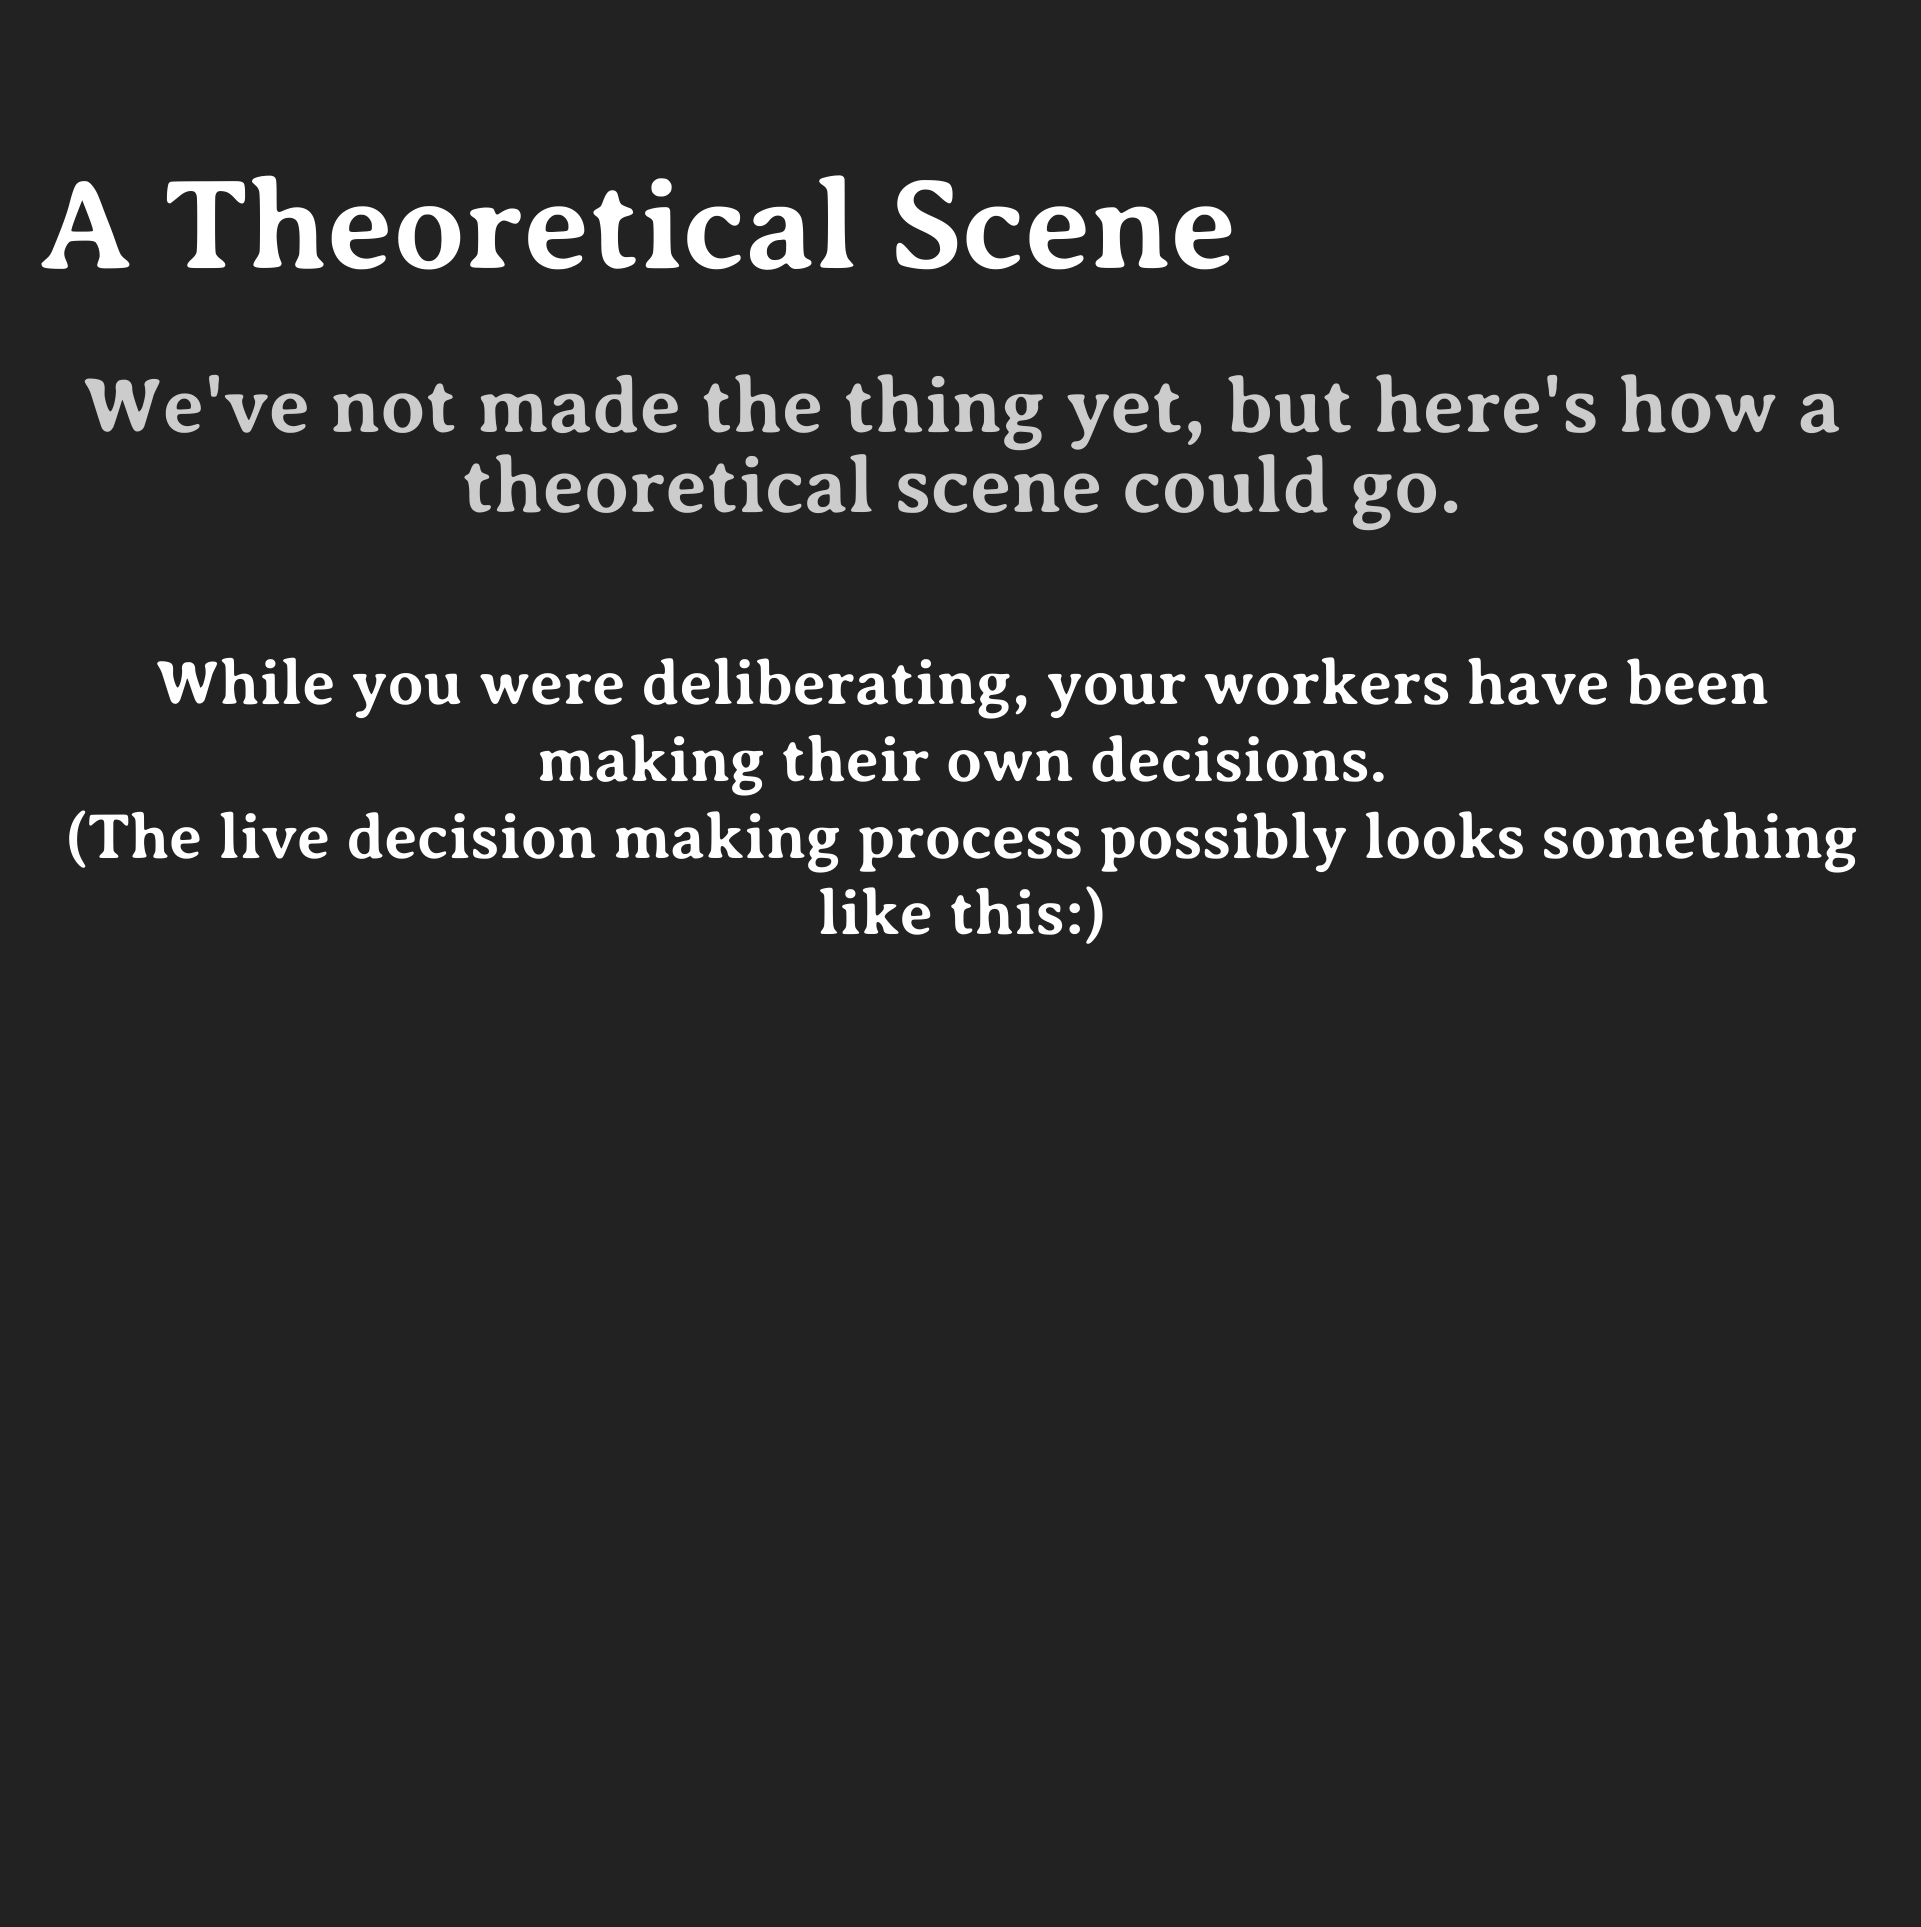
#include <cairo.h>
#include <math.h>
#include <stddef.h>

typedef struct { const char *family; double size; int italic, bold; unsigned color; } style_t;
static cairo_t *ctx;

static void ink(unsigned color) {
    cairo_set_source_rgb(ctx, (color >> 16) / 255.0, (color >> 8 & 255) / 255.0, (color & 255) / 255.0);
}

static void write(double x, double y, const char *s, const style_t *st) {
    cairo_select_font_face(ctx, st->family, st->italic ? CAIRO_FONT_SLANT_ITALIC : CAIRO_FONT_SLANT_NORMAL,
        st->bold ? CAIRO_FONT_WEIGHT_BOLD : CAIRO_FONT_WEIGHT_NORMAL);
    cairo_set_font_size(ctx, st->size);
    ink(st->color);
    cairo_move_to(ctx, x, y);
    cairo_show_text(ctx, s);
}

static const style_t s1 = {"Averia Serif Libre", 128, 0, 1, 0xffffff};
static const style_t s2 = {"Averia Serif Libre", 80, 0, 1, 0xcccccc};
static const style_t s3 = {"Averia Serif Libre", 64, 0, 1, 0xffffff};

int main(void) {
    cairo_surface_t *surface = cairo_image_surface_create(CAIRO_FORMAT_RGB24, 1921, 1927);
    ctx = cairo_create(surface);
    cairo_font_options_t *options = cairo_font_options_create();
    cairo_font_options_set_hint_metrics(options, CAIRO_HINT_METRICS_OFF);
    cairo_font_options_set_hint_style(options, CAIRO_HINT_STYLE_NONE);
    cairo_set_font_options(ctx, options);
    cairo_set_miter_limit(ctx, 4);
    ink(0x222222);
    cairo_paint(ctx);
    write(40, 268, "A Theoretical Scene", &s1);
    write(82, 432, "We've not made the thing yet, but here's how a", &s2);
    write(462, 512, "theoretical scene could go.", &s2);
    write(155, 704, "While you were deliberating, your workers have been", &s3);
    write(537, 781, "making their own decisions.", &s3);
    write(65, 858, "(The live decision making process possibly looks something", &s3);
    write(818, 934, "like this:)", &s3);
    cairo_surface_write_to_png(surface, "screenshot.png");
    cairo_font_options_destroy(options);
    cairo_destroy(ctx);
    cairo_surface_destroy(surface);
    return 0;
}
